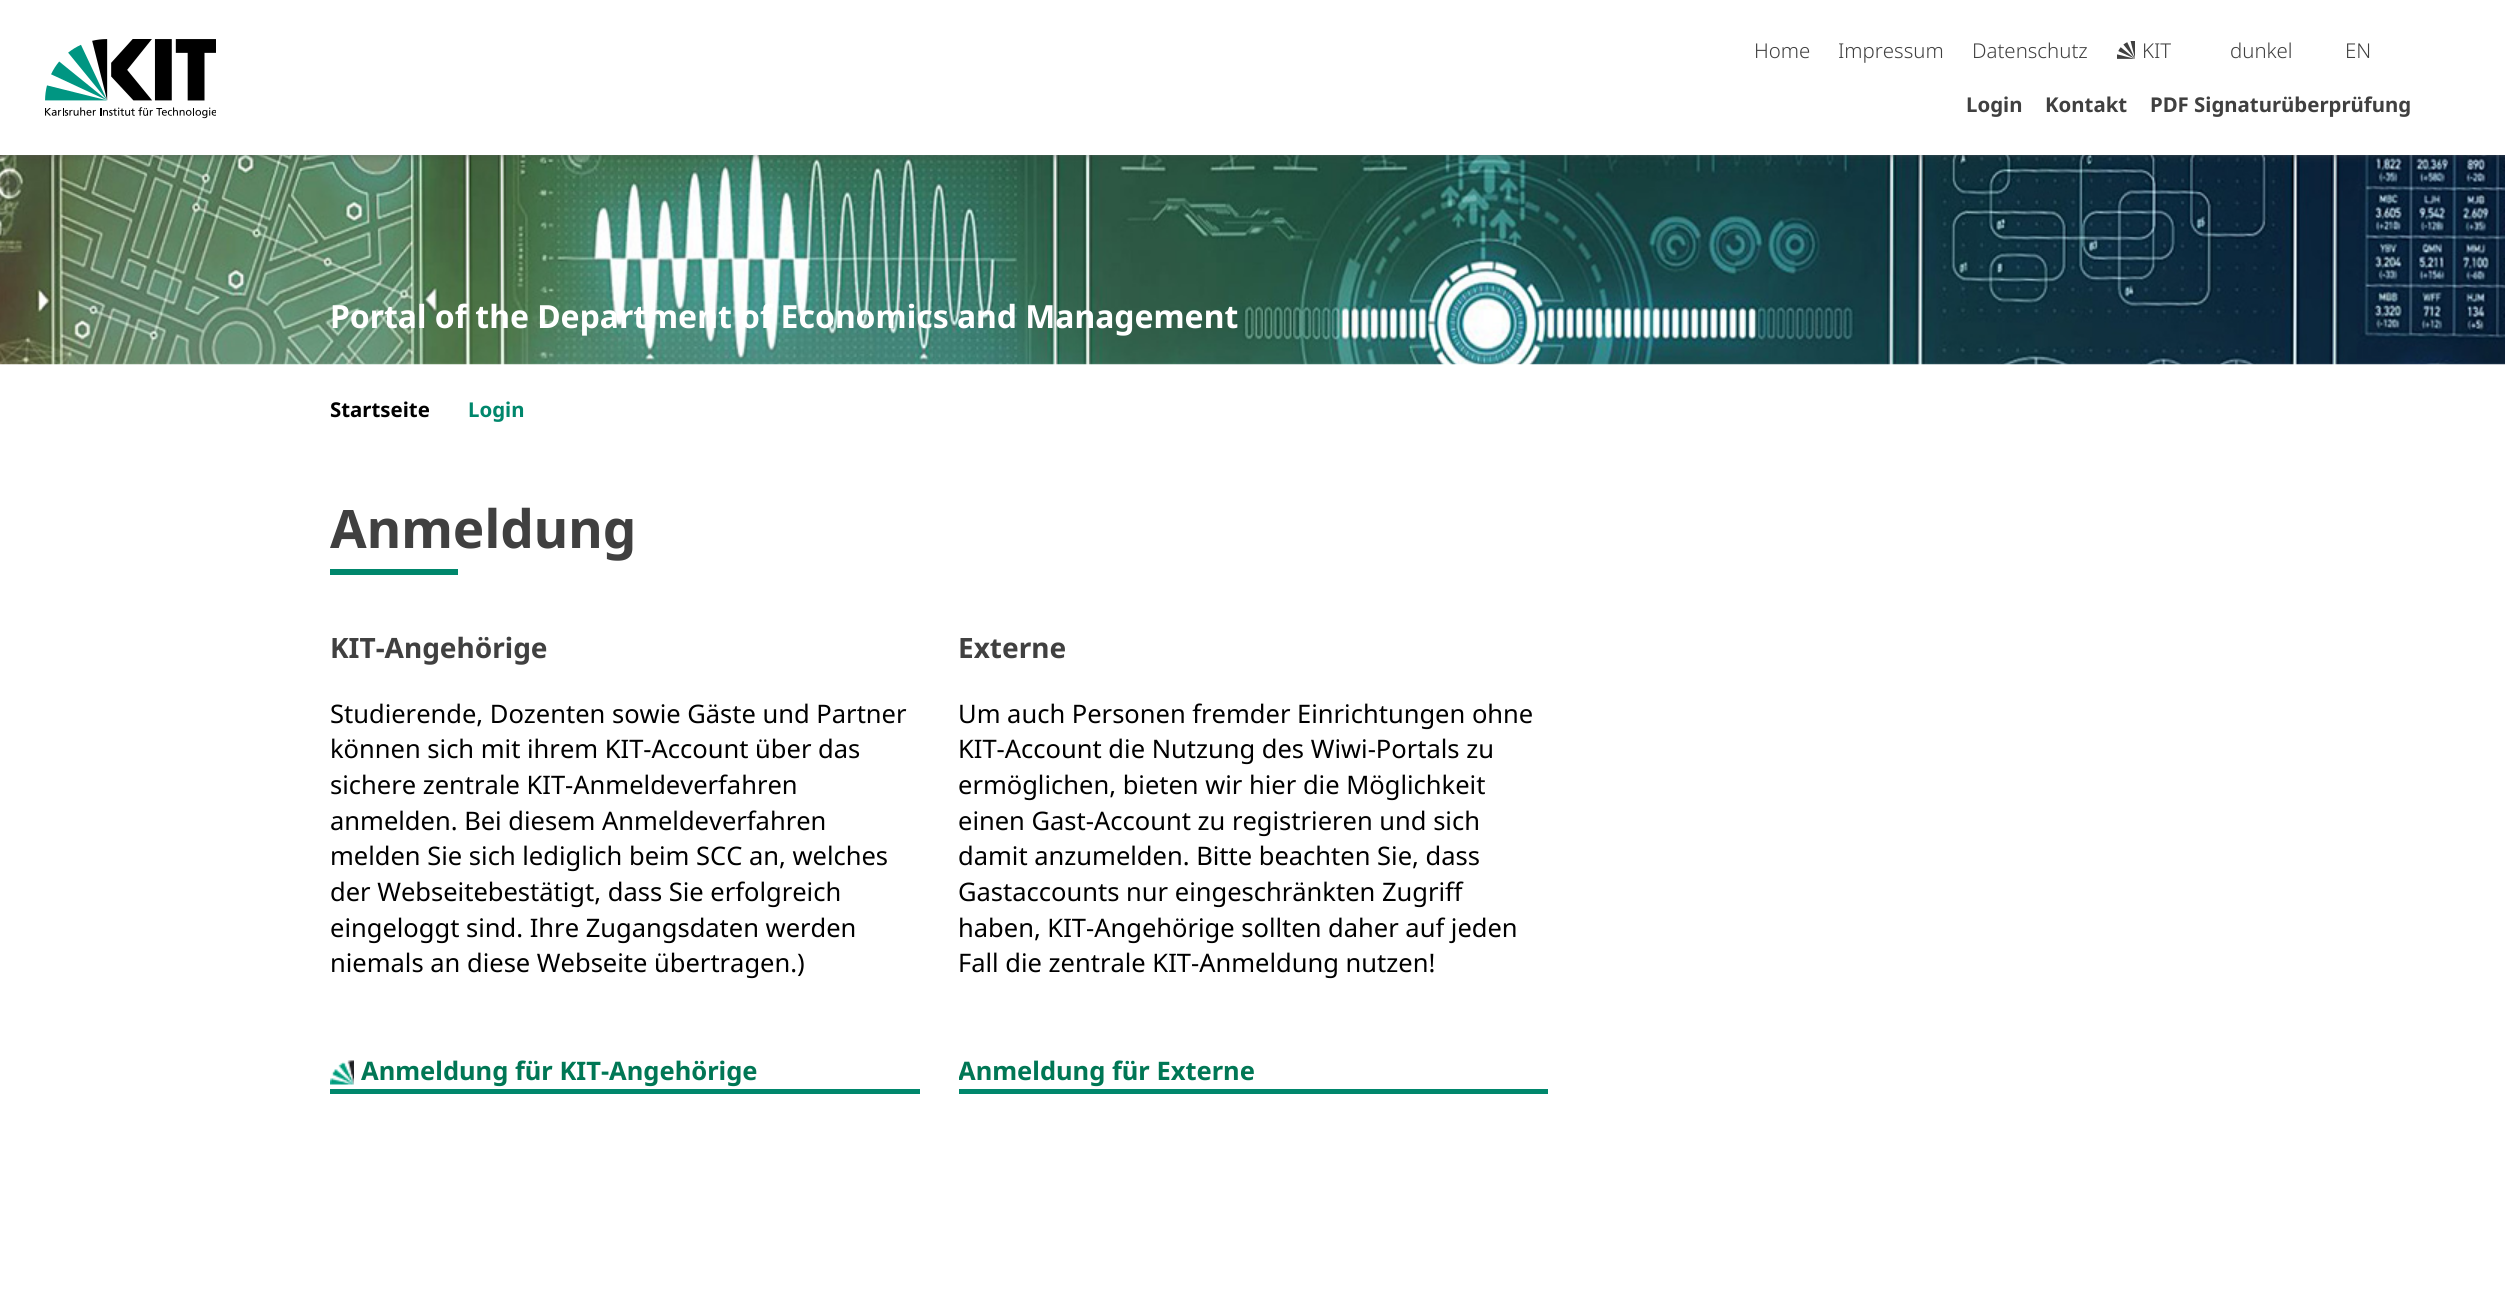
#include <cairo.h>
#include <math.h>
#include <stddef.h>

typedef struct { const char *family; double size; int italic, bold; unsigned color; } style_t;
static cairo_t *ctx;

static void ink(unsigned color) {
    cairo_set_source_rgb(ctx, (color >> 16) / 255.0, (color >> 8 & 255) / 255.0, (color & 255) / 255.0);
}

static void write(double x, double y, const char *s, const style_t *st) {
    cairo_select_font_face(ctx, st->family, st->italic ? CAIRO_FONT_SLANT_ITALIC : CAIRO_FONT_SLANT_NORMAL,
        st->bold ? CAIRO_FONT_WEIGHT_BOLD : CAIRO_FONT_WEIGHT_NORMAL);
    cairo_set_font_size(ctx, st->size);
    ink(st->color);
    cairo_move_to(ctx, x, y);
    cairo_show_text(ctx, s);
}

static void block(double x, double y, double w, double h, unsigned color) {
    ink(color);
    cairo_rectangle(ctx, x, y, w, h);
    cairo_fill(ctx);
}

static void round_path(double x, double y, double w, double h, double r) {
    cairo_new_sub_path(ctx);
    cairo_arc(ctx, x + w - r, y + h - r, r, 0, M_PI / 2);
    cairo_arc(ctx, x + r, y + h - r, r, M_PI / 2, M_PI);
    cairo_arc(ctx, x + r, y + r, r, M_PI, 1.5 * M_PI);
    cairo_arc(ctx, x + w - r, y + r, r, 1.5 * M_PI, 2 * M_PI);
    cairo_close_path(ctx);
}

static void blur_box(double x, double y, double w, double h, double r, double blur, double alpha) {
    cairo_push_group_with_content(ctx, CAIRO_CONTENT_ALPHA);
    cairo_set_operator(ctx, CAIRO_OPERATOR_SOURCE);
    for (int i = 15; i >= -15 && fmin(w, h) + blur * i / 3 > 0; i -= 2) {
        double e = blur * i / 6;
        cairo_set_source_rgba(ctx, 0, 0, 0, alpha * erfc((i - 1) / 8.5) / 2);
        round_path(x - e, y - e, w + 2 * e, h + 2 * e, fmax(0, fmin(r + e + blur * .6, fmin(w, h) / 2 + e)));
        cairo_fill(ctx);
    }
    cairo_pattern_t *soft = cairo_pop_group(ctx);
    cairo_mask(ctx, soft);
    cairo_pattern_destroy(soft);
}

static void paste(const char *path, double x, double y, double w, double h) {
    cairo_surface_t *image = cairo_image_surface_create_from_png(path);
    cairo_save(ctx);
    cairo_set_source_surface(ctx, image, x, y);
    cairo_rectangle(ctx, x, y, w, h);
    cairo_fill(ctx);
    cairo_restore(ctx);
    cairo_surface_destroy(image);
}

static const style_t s1 = {"Noto Sans Light", 20.4, 0, 0, 0x404040};
static const style_t s2 = {"Noto Sans", 20.4, 0, 1, 0x404040};
static const style_t s3 = {"Noto Sans", 31.9, 0, 1, 0xffffff};
static const style_t s4 = {"Noto Sans", 20.4, 0, 1, 0x000000};
static const style_t s5 = {"Noto Sans", 20.4, 0, 1, 0x00876c};
static const style_t s6 = {"Noto Sans", 53, 0, 1, 0x404040};
static const style_t s7 = {"Noto Sans", 28, 0, 1, 0x404040};
static const style_t s8 = {"Noto Sans", 25.5, 0, 0, 0x000000};
static const style_t s9 = {"Noto Sans", 25.5, 0, 1, 0x007755};

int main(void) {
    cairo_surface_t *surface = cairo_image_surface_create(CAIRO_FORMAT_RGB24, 2505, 1312);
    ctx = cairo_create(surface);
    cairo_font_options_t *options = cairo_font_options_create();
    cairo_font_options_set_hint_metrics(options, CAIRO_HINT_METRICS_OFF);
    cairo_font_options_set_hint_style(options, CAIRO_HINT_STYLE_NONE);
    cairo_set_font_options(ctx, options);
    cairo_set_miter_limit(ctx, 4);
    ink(0xffffff);
    cairo_paint(ctx);
    paste("pic3.png", 0, 155, 2505, 210);
    ink(0x404040);
    blur_box(0, 0, 2505, 155, 0, 4, 0.5);
    block(0, 0, 2505, 155, 0xffffff);
    paste("pic1.png", 45, 39, 171, 80);
    write(1754, 58, "Home", &s1);
    write(1838, 58, "Impressum", &s1);
    write(1972, 58, "Datenschutz", &s1);
    paste("pic2.png", 2117, 41, 18, 18);
    write(2142, 58, "KIT", &s1);
    write(2230, 58, "dunkel", &s1);
    write(2345, 58, "EN", &s1);
    write(1966, 112, "Login", &s2);
    write(2045, 112, "Kontakt", &s2);
    write(2150, 112, "PDF Signaturüberprüfung", &s2);
    write(330, 328, "Portal of the Department of Economics and Management", &s3);
    write(330, 417, "Startseite", &s4);
    write(468, 417, "Login", &s5);
    write(330, 548, "Anmeldung", &s6);
    block(330, 569, 128, 6, 0x00876c);
    write(330, 658, "KIT-Angehörige", &s7);
    write(330, 723, "Studierende, Dozenten sowie Gäste und Partner", &s8);
    write(330, 758, "können sich mit ihrem KIT-Account über das", &s8);
    write(330, 794, "sichere zentrale KIT-Anmeldeverfahren", &s8);
    write(330, 830, "anmelden. Bei diesem Anmeldeverfahren", &s8);
    write(330, 865, "melden Sie sich lediglich beim SCC an, welches", &s8);
    write(330, 901, "der Webseitebestätigt, dass Sie erfolgreich", &s8);
    write(330, 937, "eingeloggt sind. Ihre Zugangsdaten werden", &s8);
    write(330, 972, "niemals an diese Webseite übertragen.)", &s8);
    block(330, 1089, 590, 5, 0x00876c);
    paste("pic4.png", 330, 1060, 24, 25);
    write(361, 1080, "Anmeldung für KIT-Angehörige", &s9);
    write(958, 658, "Externe", &s7);
    write(958, 723, "Um auch Personen fremder Einrichtungen ohne", &s8);
    write(958, 758, "KIT-Account die Nutzung des Wiwi-Portals zu", &s8);
    write(958, 794, "ermöglichen, bieten wir hier die Möglichkeit", &s8);
    write(958, 830, "einen Gast-Account zu registrieren und sich", &s8);
    write(958, 865, "damit anzumelden. Bitte beachten Sie, dass", &s8);
    write(958, 901, "Gastaccounts nur eingeschränkten Zugriff", &s8);
    write(958, 937, "haben, KIT-Angehörige sollten daher auf jeden", &s8);
    write(958, 972, "Fall die zentrale KIT-Anmeldung nutzen!", &s8);
    block(959, 1089, 589, 5, 0x00876c);
    cairo_save(ctx);
    cairo_rectangle(ctx, 959, 1053, 589, 36);
    cairo_clip(ctx);
    write(958, 1080, "Anmeldung für Externe", &s9);
    cairo_restore(ctx);
    cairo_surface_write_to_png(surface, "screenshot.png");
    cairo_font_options_destroy(options);
    cairo_destroy(ctx);
    cairo_surface_destroy(surface);
    return 0;
}
